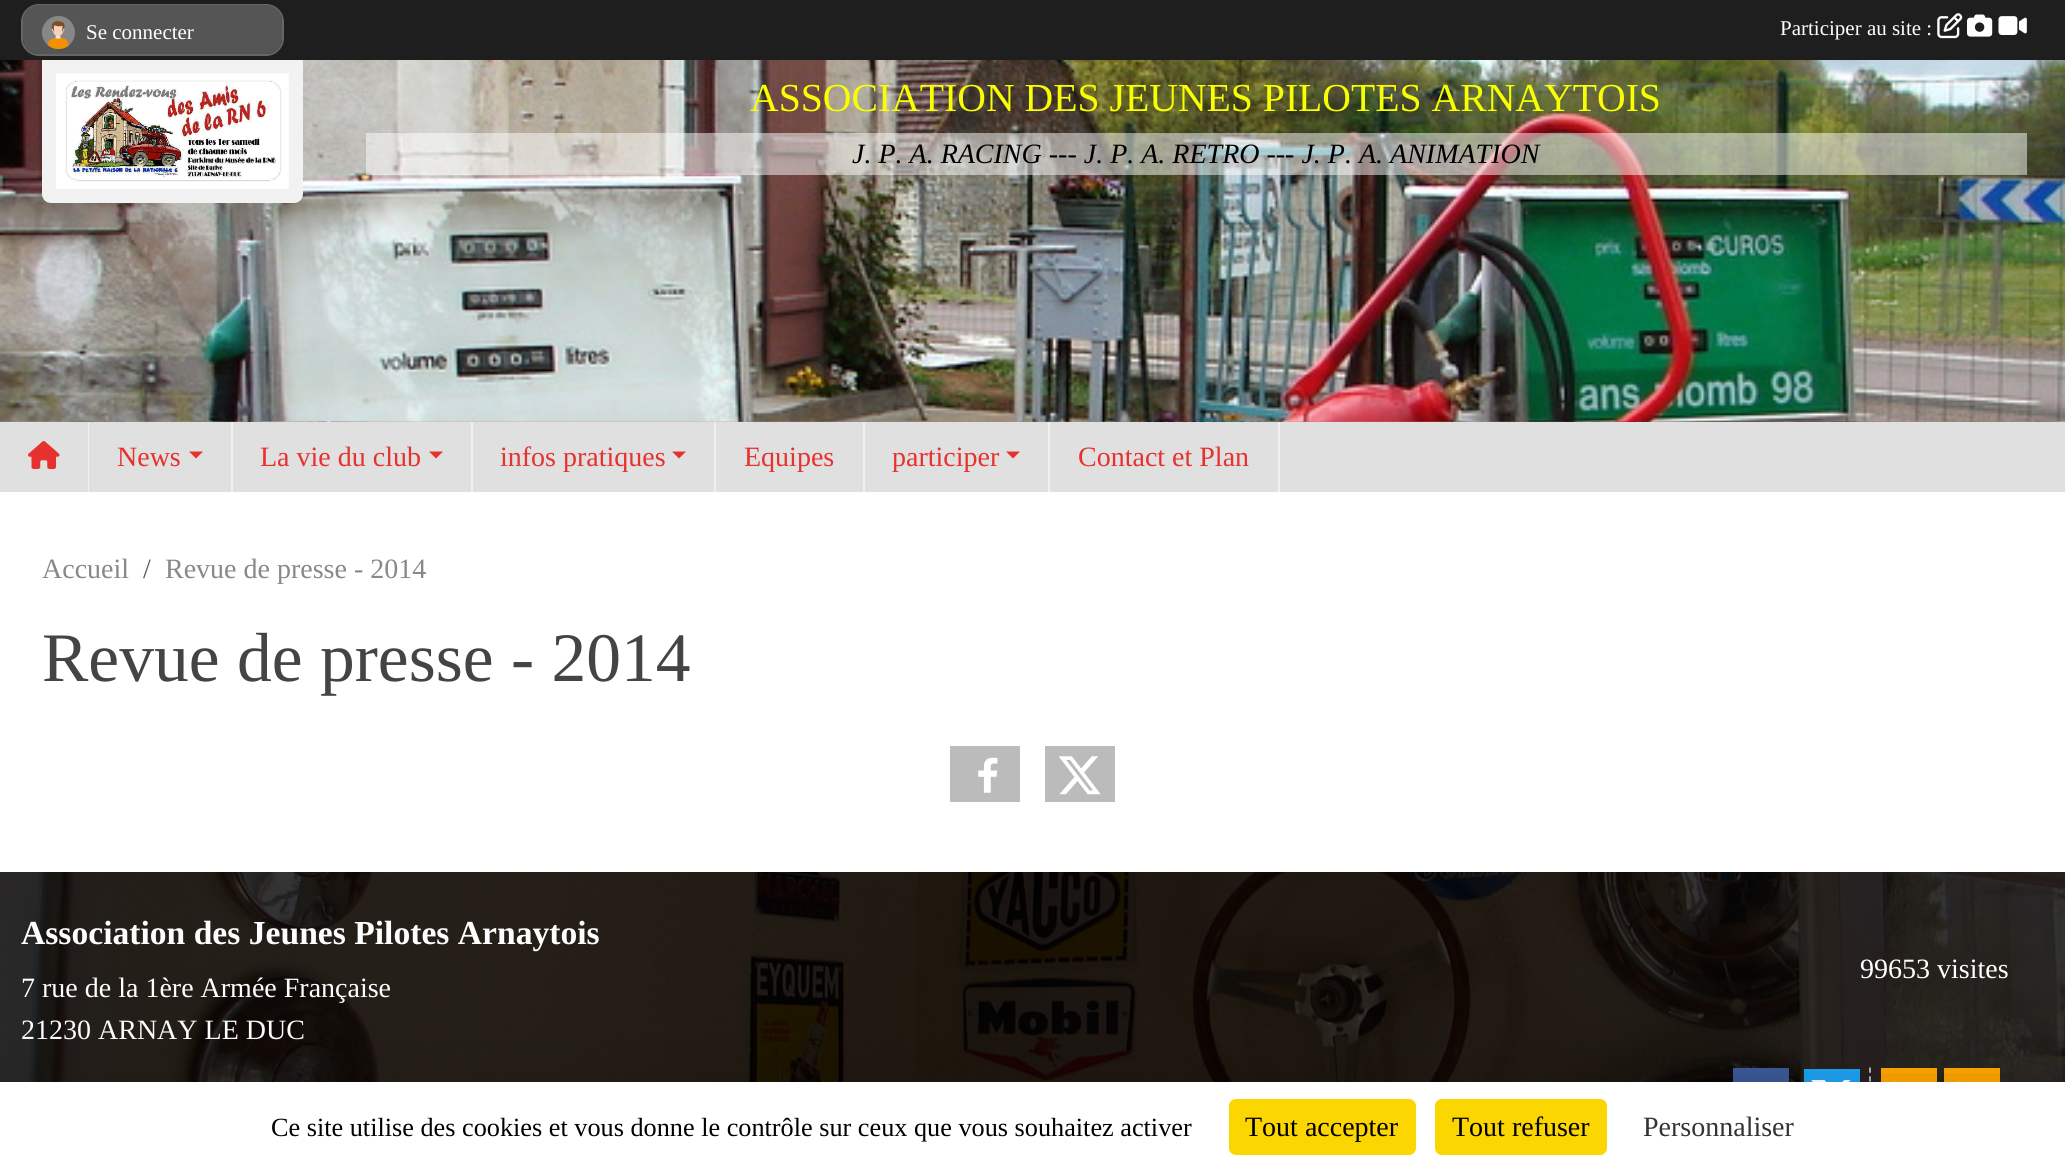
#include <cairo.h>
#include <math.h>
#include <stddef.h>

typedef struct { const char *family; double size; int italic, bold; unsigned color; } style_t;
static cairo_t *ctx;

static void ink(unsigned color) {
    cairo_set_source_rgb(ctx, (color >> 16) / 255.0, (color >> 8 & 255) / 255.0, (color & 255) / 255.0);
}

static void write(double x, double y, const char *s, const style_t *st) {
    cairo_select_font_face(ctx, st->family, st->italic ? CAIRO_FONT_SLANT_ITALIC : CAIRO_FONT_SLANT_NORMAL,
        st->bold ? CAIRO_FONT_WEIGHT_BOLD : CAIRO_FONT_WEIGHT_NORMAL);
    cairo_set_font_size(ctx, st->size);
    ink(st->color);
    cairo_move_to(ctx, x, y);
    cairo_show_text(ctx, s);
}

static void block(double x, double y, double w, double h, unsigned color) {
    ink(color);
    cairo_rectangle(ctx, x, y, w, h);
    cairo_fill(ctx);
}

static void round_path(double x, double y, double w, double h, double r) {
    cairo_new_sub_path(ctx);
    cairo_arc(ctx, x + w - r, y + h - r, r, 0, M_PI / 2);
    cairo_arc(ctx, x + r, y + h - r, r, M_PI / 2, M_PI);
    cairo_arc(ctx, x + r, y + r, r, M_PI, 1.5 * M_PI);
    cairo_arc(ctx, x + w - r, y + r, r, 1.5 * M_PI, 2 * M_PI);
    cairo_close_path(ctx);
}

static void blur_box(double x, double y, double w, double h, double r, double blur, double alpha) {
    cairo_push_group_with_content(ctx, CAIRO_CONTENT_ALPHA);
    cairo_set_operator(ctx, CAIRO_OPERATOR_SOURCE);
    for (int i = 15; i >= -15 && fmin(w, h) + blur * i / 3 > 0; i -= 2) {
        double e = blur * i / 6;
        cairo_set_source_rgba(ctx, 0, 0, 0, alpha * erfc((i - 1) / 8.5) / 2);
        round_path(x - e, y - e, w + 2 * e, h + 2 * e, fmax(0, fmin(r + e + blur * .6, fmin(w, h) / 2 + e)));
        cairo_fill(ctx);
    }
    cairo_pattern_t *soft = cairo_pop_group(ctx);
    cairo_mask(ctx, soft);
    cairo_pattern_destroy(soft);
}

static void paste(const char *path, double x, double y, double w, double h) {
    cairo_surface_t *image = cairo_image_surface_create_from_png(path);
    cairo_save(ctx);
    cairo_set_source_surface(ctx, image, x, y);
    cairo_rectangle(ctx, x, y, w, h);
    cairo_fill(ctx);
    cairo_restore(ctx);
    cairo_surface_destroy(image);
}

static const style_t s1 = {"Liberation Serif", 21, 0, 0, 0xffffff};
static const style_t s2 = {"Liberation Serif", 39.7, 0, 0, 0xf7ff00};
static const style_t s3 = {"Liberation Serif", 28, 1, 0, 0x000000};
static const style_t s4 = {"Liberation Serif", 28, 0, 0, 0xe6312e};
static const style_t s5 = {"Liberation Serif", 28, 0, 0, 0x888888};
static const style_t s6 = {"Liberation Serif", 28, 0, 0, 0x595c5f};
static const style_t s7 = {"Liberation Serif", 69.5, 0, 0, 0x444444};
static const style_t s8 = {"Liberation Serif", 33.6, 0, 1, 0xffffff};
static const style_t s9 = {"Liberation Serif", 28, 0, 0, 0xffffff};
static const style_t s10 = {"Liberation Serif", 26.25, 0, 0, 0x000000};
static const style_t s11 = {"Liberation Serif", 28, 0, 0, 0x000000};
static const style_t s12 = {"Liberation Serif", 28, 0, 0, 0x333333};

int main(void) {
    cairo_surface_t *surface = cairo_image_surface_create(CAIRO_FORMAT_RGB24, 2065, 1172);
    ctx = cairo_create(surface);
    cairo_font_options_t *options = cairo_font_options_create();
    cairo_font_options_set_hint_metrics(options, CAIRO_HINT_METRICS_OFF);
    cairo_font_options_set_hint_style(options, CAIRO_HINT_STYLE_NONE);
    cairo_set_font_options(ctx, options);
    cairo_set_miter_limit(ctx, 4);
    ink(0xffffff);
    cairo_paint(ctx);
    paste("pic1.png", 0, 421, 2065, 661);
    block(0, 0, 2065, 60, 0x1e1e1e);
    round_path(22, 5, 261, 50, 17);
    ink(0x666666);
    cairo_stroke(ctx);
    ink(0x555555);
    round_path(23, 5, 259, 49, 16);
    cairo_fill(ctx);
    paste("pic2.png", 42, 16, 33, 33);
    write(86, 39, "Se connecter", &s1);
    write(1780, 35, "Participer au site :", &s1);
    paste("pic3.png", 1937, 13, 26, 26);
    paste("pic4.png", 1967, 14, 26, 23);
    paste("pic5.png", 1998, 16, 29, 19);
    paste("pic7.png", 0, 60, 2065, 362);
    ink(0xf2f2f2);
    cairo_new_path(ctx);
    cairo_move_to(ctx, 42, 60);
    cairo_line_to(ctx, 303, 60);
    cairo_line_to(ctx, 303, 194);
    cairo_curve_to(ctx, 303, 199, 299, 203, 294, 203);
    cairo_line_to(ctx, 51, 203);
    cairo_curve_to(ctx, 46, 203, 42, 199, 42, 194);
    cairo_close_path(ctx);
    cairo_fill(ctx);
    paste("pic6.png", 56, 73, 233, 116);
    write(750, 111, "ASSOCIATION DES JEUNES PILOTES ARNAYTOIS", &s2);
    cairo_set_source_rgba(ctx, 1, 1, 1, 0.5);
    cairo_rectangle(ctx, 366, 133, 1661, 42);
    cairo_fill(ctx);
    write(852, 163, "J. P. A. RACING --- J. P. A. RETRO --- J. P. A. ANIMATION", &s3);
    block(0, 422, 2065, 70, 0xe0e0e0);
    block(88, 422, 1, 70, 0xf0f0f0);
    paste("pic8.png", 28, 441, 32, 28);
    block(231, 422, 2, 70, 0xf0f0f0);
    write(117, 466, "News", &s4);
    cairo_new_path(ctx);
    cairo_move_to(ctx, 189, 451.5);
    cairo_line_to(ctx, 203, 451.5);
    cairo_line_to(ctx, 196, 458.5);
    cairo_close_path(ctx);
    cairo_fill(ctx);
    block(471, 422, 2, 70, 0xf0f0f0);
    write(260, 466, "La vie du club", &s4);
    cairo_new_path(ctx);
    cairo_move_to(ctx, 429, 451.5);
    cairo_line_to(ctx, 443, 451.5);
    cairo_line_to(ctx, 436, 458.5);
    cairo_close_path(ctx);
    cairo_fill(ctx);
    block(714, 422, 2, 70, 0xf0f0f0);
    write(500, 466, "infos pratiques", &s4);
    cairo_new_path(ctx);
    cairo_move_to(ctx, 672, 451.5);
    cairo_line_to(ctx, 686, 451.5);
    cairo_line_to(ctx, 679, 458.5);
    cairo_close_path(ctx);
    cairo_fill(ctx);
    block(863, 422, 2, 70, 0xf0f0f0);
    write(744, 466, "Equipes", &s4);
    block(1048, 422, 2, 70, 0xf0f0f0);
    write(892, 466, "participer", &s4);
    cairo_new_path(ctx);
    cairo_move_to(ctx, 1006, 451.5);
    cairo_line_to(ctx, 1020, 451.5);
    cairo_line_to(ctx, 1013, 458.5);
    cairo_close_path(ctx);
    cairo_fill(ctx);
    block(1278, 422, 2, 70, 0xf0f0f0);
    write(1078, 466, "Contact et Plan", &s4);
    block(0, 492, 2065, 380, 0xffffff);
    write(42, 578, "Accueil", &s5);
    write(143, 578, "/", &s6);
    write(165, 578, "Revue de presse - 2014", &s5);
    write(42, 681, "Revue de presse - 2014", &s7);
    block(950, 746, 70, 56, 0xbbbbbb);
    paste("pic9.png", 978, 757, 20, 36);
    block(1045, 746, 70, 56, 0xbbbbbb);
    paste("pic10.png", 1059, 756, 42, 39);
    cairo_set_source_rgba(ctx, 0, 0, 0, 0.8);
    cairo_rectangle(ctx, 0, 872, 2065, 210);
    cairo_fill(ctx);
    write(21, 944, "Association des Jeunes Pilotes Arnaytois", &s8);
    write(21, 997, "7 rue de la 1ère Armée Française", &s9);
    write(21, 1039, "21230 ARNAY LE DUC", &s9);
    write(1860, 978, "99653 visites", &s9);
    block(1733, 1068, 56, 14, 0x3b5998);
    block(1804, 1069, 56, 13, 0x1da1f2);
    paste("pic11.png", 1811, 1080, 40, 2);
    cairo_new_path(ctx);
    cairo_move_to(ctx, 1870, 1067.5);
    cairo_line_to(ctx, 1870, 1125);
    ink(0xc0c0c0);
    cairo_set_line_width(ctx, 1.8);
    cairo_set_dash(ctx, (double[]){5.25, 3.5}, 2, 0);
    cairo_stroke(ctx);
    block(1881, 1068, 56, 14, 0xffa500);
    paste("pic12.png", 1893, 1081, 5, 1);
    block(1944, 1068, 56, 14, 0xffa500);
    paste("pic12.png", 1956, 1081, 5, 1);
    ink(0x000000);
    blur_box(0, 1117, 2065, 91, 0, 52.5, 0.25);
    block(0, 1082, 2065, 90, 0xffffff);
    write(271, 1136, "Ce site utilise des cookies et vous donne le contrôle sur ceux que vous souhaitez activer", &s10);
    ink(0xfbd600);
    round_path(1229, 1099, 187, 56, 7);
    cairo_fill(ctx);
    write(1245, 1136, "Tout accepter", &s11);
    ink(0xfbd600);
    round_path(1435, 1099, 172, 56, 7);
    cairo_fill(ctx);
    write(1452, 1136, "Tout refuser", &s11);
    write(1643, 1136, "Personnaliser", &s12);
    cairo_surface_write_to_png(surface, "screenshot.png");
    cairo_font_options_destroy(options);
    cairo_destroy(ctx);
    cairo_surface_destroy(surface);
    return 0;
}
